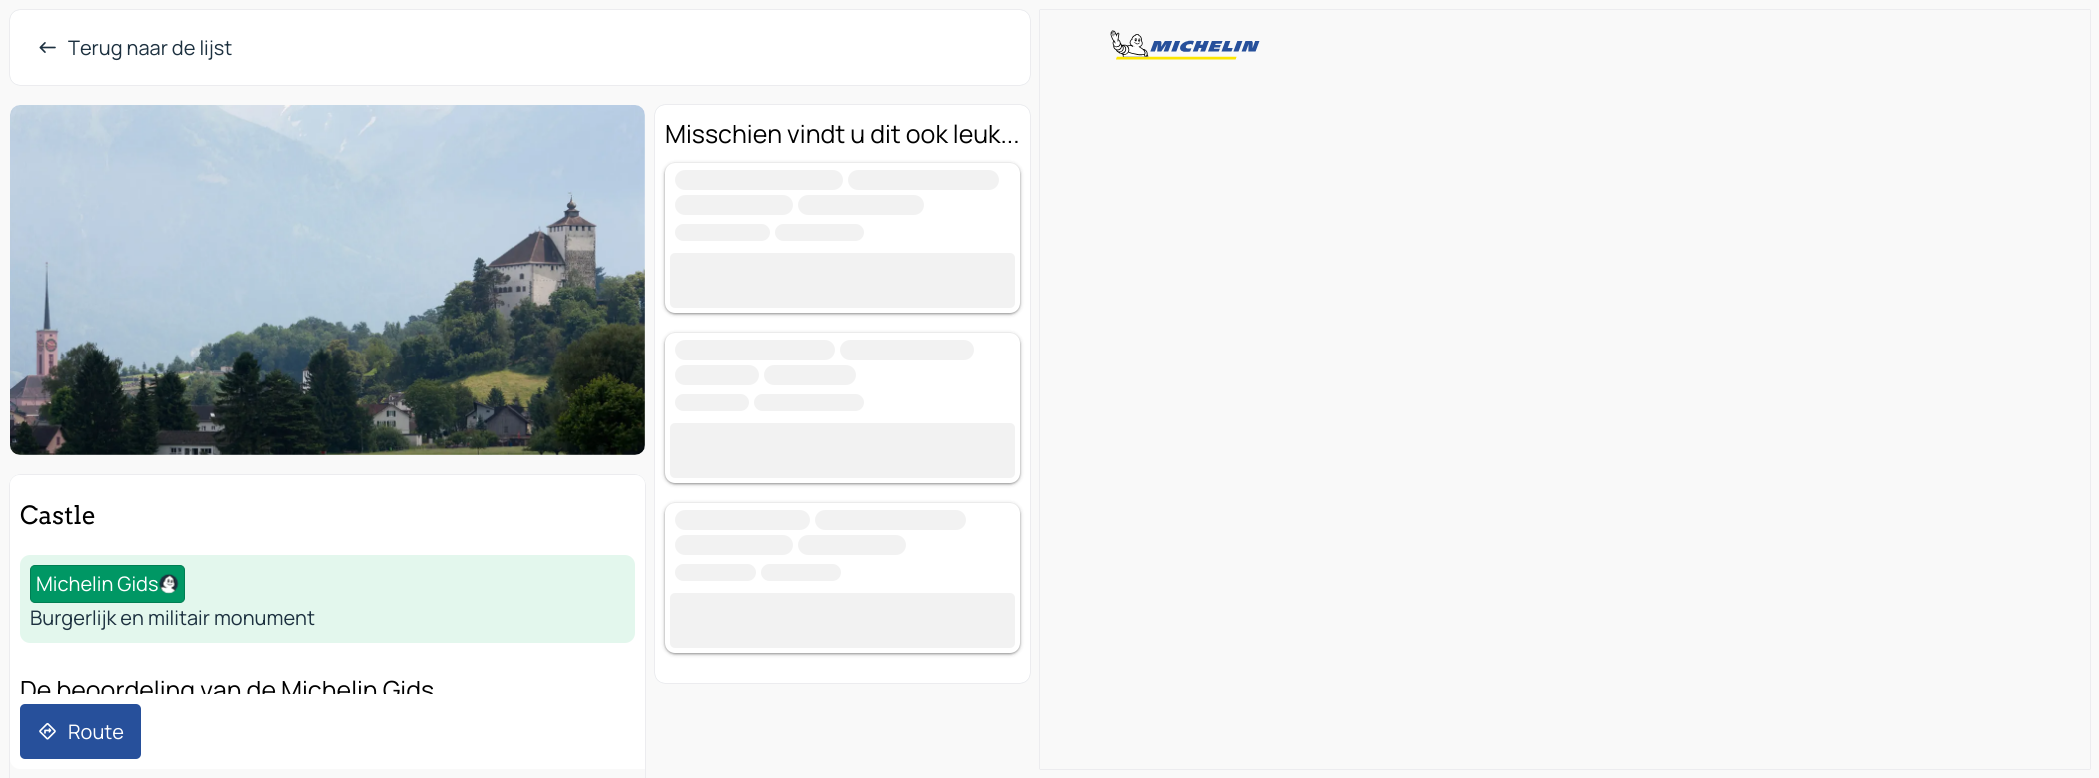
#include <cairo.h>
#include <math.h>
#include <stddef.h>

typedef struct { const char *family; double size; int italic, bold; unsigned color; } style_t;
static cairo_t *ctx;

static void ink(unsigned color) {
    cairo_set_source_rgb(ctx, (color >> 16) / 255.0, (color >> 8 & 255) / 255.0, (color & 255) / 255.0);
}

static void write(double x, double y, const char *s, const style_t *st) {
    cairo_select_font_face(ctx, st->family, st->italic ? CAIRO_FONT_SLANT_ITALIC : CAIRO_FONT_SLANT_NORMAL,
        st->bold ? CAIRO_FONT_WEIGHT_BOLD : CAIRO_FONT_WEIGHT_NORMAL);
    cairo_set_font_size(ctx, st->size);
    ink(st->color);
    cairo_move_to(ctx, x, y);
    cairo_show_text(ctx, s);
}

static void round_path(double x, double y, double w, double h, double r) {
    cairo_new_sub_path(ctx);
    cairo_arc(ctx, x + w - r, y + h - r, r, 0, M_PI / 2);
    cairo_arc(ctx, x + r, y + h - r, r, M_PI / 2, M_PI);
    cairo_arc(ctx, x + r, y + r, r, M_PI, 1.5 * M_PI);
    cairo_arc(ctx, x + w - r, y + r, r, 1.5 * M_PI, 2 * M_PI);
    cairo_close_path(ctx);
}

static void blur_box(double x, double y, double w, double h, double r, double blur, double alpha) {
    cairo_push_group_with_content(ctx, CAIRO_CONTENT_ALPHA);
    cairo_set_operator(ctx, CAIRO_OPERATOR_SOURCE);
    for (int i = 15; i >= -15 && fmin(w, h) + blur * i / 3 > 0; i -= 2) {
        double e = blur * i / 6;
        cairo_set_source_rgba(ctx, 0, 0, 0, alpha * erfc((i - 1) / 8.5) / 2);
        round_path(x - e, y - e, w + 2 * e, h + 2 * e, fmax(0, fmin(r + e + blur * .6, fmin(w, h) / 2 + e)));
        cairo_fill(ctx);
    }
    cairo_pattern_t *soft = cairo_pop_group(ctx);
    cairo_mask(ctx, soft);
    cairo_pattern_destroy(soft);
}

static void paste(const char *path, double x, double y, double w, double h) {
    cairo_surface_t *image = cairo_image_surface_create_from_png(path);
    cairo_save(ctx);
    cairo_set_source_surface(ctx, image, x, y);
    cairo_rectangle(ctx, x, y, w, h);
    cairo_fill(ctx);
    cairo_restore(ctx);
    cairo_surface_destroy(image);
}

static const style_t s1 = {"Manrope ExtraLight", 20, 0, 0, 0x1d3140};
static const style_t s2 = {"Manrope ExtraLight", 25, 0, 0, 0x000000};
static const style_t s3 = {"Arvo", 25, 0, 0, 0x000000};
static const style_t s4 = {"Manrope ExtraLight", 20, 0, 0, 0xffffff};

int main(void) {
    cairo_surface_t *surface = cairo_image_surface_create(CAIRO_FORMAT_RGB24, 2099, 778);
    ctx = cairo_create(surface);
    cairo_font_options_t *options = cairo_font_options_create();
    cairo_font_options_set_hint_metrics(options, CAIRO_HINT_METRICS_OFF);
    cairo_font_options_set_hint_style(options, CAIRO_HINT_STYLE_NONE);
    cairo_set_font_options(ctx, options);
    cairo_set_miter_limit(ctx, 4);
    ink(0xf9f9f9);
    cairo_paint(ctx);
    ink(0x0c1a4b);
    blur_box(10, 10, 1020, 75, 10, 0.5, 0.24);
    ink(0xffffff);
    round_path(10, 10, 1020, 75, 10);
    cairo_fill(ctx);
    paste("pic1.png", 39, 42, 17, 11);
    write(68, 55, "Terug naar de lijst", &s1);
    ink(0x0c1a4b);
    blur_box(655, 105, 375, 578, 10, 0.5, 0.24);
    ink(0xffffff);
    round_path(655, 105, 375, 578, 10);
    cairo_fill(ctx);
    write(665, 143, "Misschien vindt u dit ook leuk...", &s2);
    ink(0x000000);
    blur_box(665, 164, 355, 150, 10, 1, 0.3);
    blur_box(664, 163, 357, 152, 11, 2, 0.15);
    ink(0xffffff);
    round_path(665, 163, 355, 150, 10);
    cairo_fill(ctx);
    ink(0xf2f2f2);
    round_path(675, 170, 168, 20, 10);
    cairo_fill(ctx);
    round_path(848, 170, 151, 20, 10);
    cairo_fill(ctx);
    round_path(675, 195, 118, 20, 10);
    cairo_fill(ctx);
    round_path(798, 195, 126, 20, 10);
    cairo_fill(ctx);
    round_path(675, 224, 95, 17, 8.5);
    cairo_fill(ctx);
    round_path(775, 224, 89, 17, 8.5);
    cairo_fill(ctx);
    round_path(670, 253, 345, 55, 5);
    cairo_fill(ctx);
    ink(0x000000);
    blur_box(665, 334, 355, 150, 10, 1, 0.3);
    blur_box(664, 333, 357, 152, 11, 2, 0.15);
    ink(0xffffff);
    round_path(665, 333, 355, 150, 10);
    cairo_fill(ctx);
    ink(0xf2f2f2);
    round_path(675, 340, 160, 20, 10);
    cairo_fill(ctx);
    round_path(840, 340, 134, 20, 10);
    cairo_fill(ctx);
    round_path(675, 365, 84, 20, 10);
    cairo_fill(ctx);
    round_path(764, 365, 92, 20, 10);
    cairo_fill(ctx);
    round_path(675, 394, 74, 17, 8.5);
    cairo_fill(ctx);
    round_path(754, 394, 110, 17, 8.5);
    cairo_fill(ctx);
    round_path(670, 423, 345, 55, 5);
    cairo_fill(ctx);
    ink(0x000000);
    blur_box(665, 504, 355, 150, 10, 1, 0.3);
    blur_box(664, 503, 357, 152, 11, 2, 0.15);
    ink(0xffffff);
    round_path(665, 503, 355, 150, 10);
    cairo_fill(ctx);
    ink(0xf2f2f2);
    round_path(675, 510, 135, 20, 10);
    cairo_fill(ctx);
    round_path(815, 510, 151, 20, 10);
    cairo_fill(ctx);
    round_path(675, 535, 118, 20, 10);
    cairo_fill(ctx);
    round_path(798, 535, 108, 20, 10);
    cairo_fill(ctx);
    round_path(675, 564, 81, 17, 8.5);
    cairo_fill(ctx);
    round_path(761, 564, 80, 17, 8.5);
    cairo_fill(ctx);
    round_path(670, 593, 345, 55, 5);
    cairo_fill(ctx);
    ink(0xffffff);
    round_path(10, 105, 635, 350, 10);
    cairo_fill(ctx);
    paste("pic2.png", 10, 105, 635, 350);
    cairo_save(ctx);
    cairo_set_fill_rule(ctx, CAIRO_FILL_RULE_EVEN_ODD);
    cairo_new_path(ctx);
    cairo_move_to(ctx, 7, 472);
    cairo_line_to(ctx, 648, 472);
    cairo_line_to(ctx, 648, 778);
    cairo_line_to(ctx, 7, 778);
    cairo_close_path(ctx);
    cairo_move_to(ctx, 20, 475);
    cairo_line_to(ctx, 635, 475);
    cairo_curve_to(ctx, 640.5, 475, 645, 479.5, 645, 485);
    cairo_line_to(ctx, 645, 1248);
    cairo_curve_to(ctx, 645, 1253.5, 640.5, 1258, 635, 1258);
    cairo_line_to(ctx, 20, 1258);
    cairo_curve_to(ctx, 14.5, 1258, 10, 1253.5, 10, 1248);
    cairo_line_to(ctx, 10, 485);
    cairo_curve_to(ctx, 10, 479.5, 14.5, 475, 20, 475);
    cairo_close_path(ctx);
    cairo_clip(ctx);
    ink(0x0c1a4b);
    blur_box(10, 475, 635, 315, 10, 0.5, 0.24);
    cairo_restore(ctx);
    cairo_new_path(ctx);
    cairo_move_to(ctx, 20, 475);
    cairo_line_to(ctx, 635, 475);
    cairo_curve_to(ctx, 640.5, 475, 645, 479.5, 645, 485);
    cairo_line_to(ctx, 645, 769);
    cairo_line_to(ctx, 20, 769);
    cairo_curve_to(ctx, 14.5, 769, 10, 764.5, 10, 759);
    cairo_line_to(ctx, 10, 485);
    cairo_curve_to(ctx, 10, 479.5, 14.5, 475, 20, 475);
    cairo_close_path(ctx);
    cairo_fill(ctx);
    write(20, 524, "Castle", &s3);
    ink(0xe3f7ed);
    round_path(20, 555, 615, 88, 10);
    cairo_fill(ctx);
    ink(0x009764);
    round_path(30.5, 565.5, 154, 37, 4.5);
    cairo_fill_preserve(ctx);
    ink(0x007e53);
    cairo_set_line_width(ctx, 1);
    cairo_stroke(ctx);
    write(36, 591, "Michelin Gids", &s4);
    paste("pic3.png", 159, 573, 20, 21);
    write(30, 625, "Burgerlijk en militair monument", &s1);
    write(20, 699, "De beoordeling van de Michelin Gids", &s2);
    ink(0xffffff);
    cairo_new_path(ctx);
    cairo_move_to(ctx, 10, 694);
    cairo_line_to(ctx, 645, 694);
    cairo_line_to(ctx, 645, 749);
    cairo_curve_to(ctx, 645, 760, 636, 769, 625, 769);
    cairo_line_to(ctx, 30, 769);
    cairo_curve_to(ctx, 19, 769, 10, 760, 10, 749);
    cairo_close_path(ctx);
    cairo_fill(ctx);
    ink(0x27509b);
    round_path(20, 704, 121, 55, 5);
    cairo_fill(ctx);
    paste("pic4.png", 39, 722, 17, 18);
    write(68, 739, "Route", &s4);
    cairo_save(ctx);
    cairo_set_fill_rule(ctx, CAIRO_FILL_RULE_EVEN_ODD);
    cairo_new_path(ctx);
    cairo_move_to(ctx, 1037, 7);
    cairo_line_to(ctx, 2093, 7);
    cairo_line_to(ctx, 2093, 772);
    cairo_line_to(ctx, 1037, 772);
    cairo_close_path(ctx);
    cairo_move_to(ctx, 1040, 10);
    cairo_line_to(ctx, 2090, 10);
    cairo_line_to(ctx, 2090, 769);
    cairo_line_to(ctx, 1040, 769);
    cairo_close_path(ctx);
    cairo_clip(ctx);
    ink(0x0c1a4b);
    blur_box(1040, 10, 1050, 759, 0, 0.5, 0.24);
    cairo_restore(ctx);
    paste("pic5.png", 1110, 30, 150, 30);
    cairo_surface_write_to_png(surface, "screenshot.png");
    cairo_font_options_destroy(options);
    cairo_destroy(ctx);
    cairo_surface_destroy(surface);
    return 0;
}
